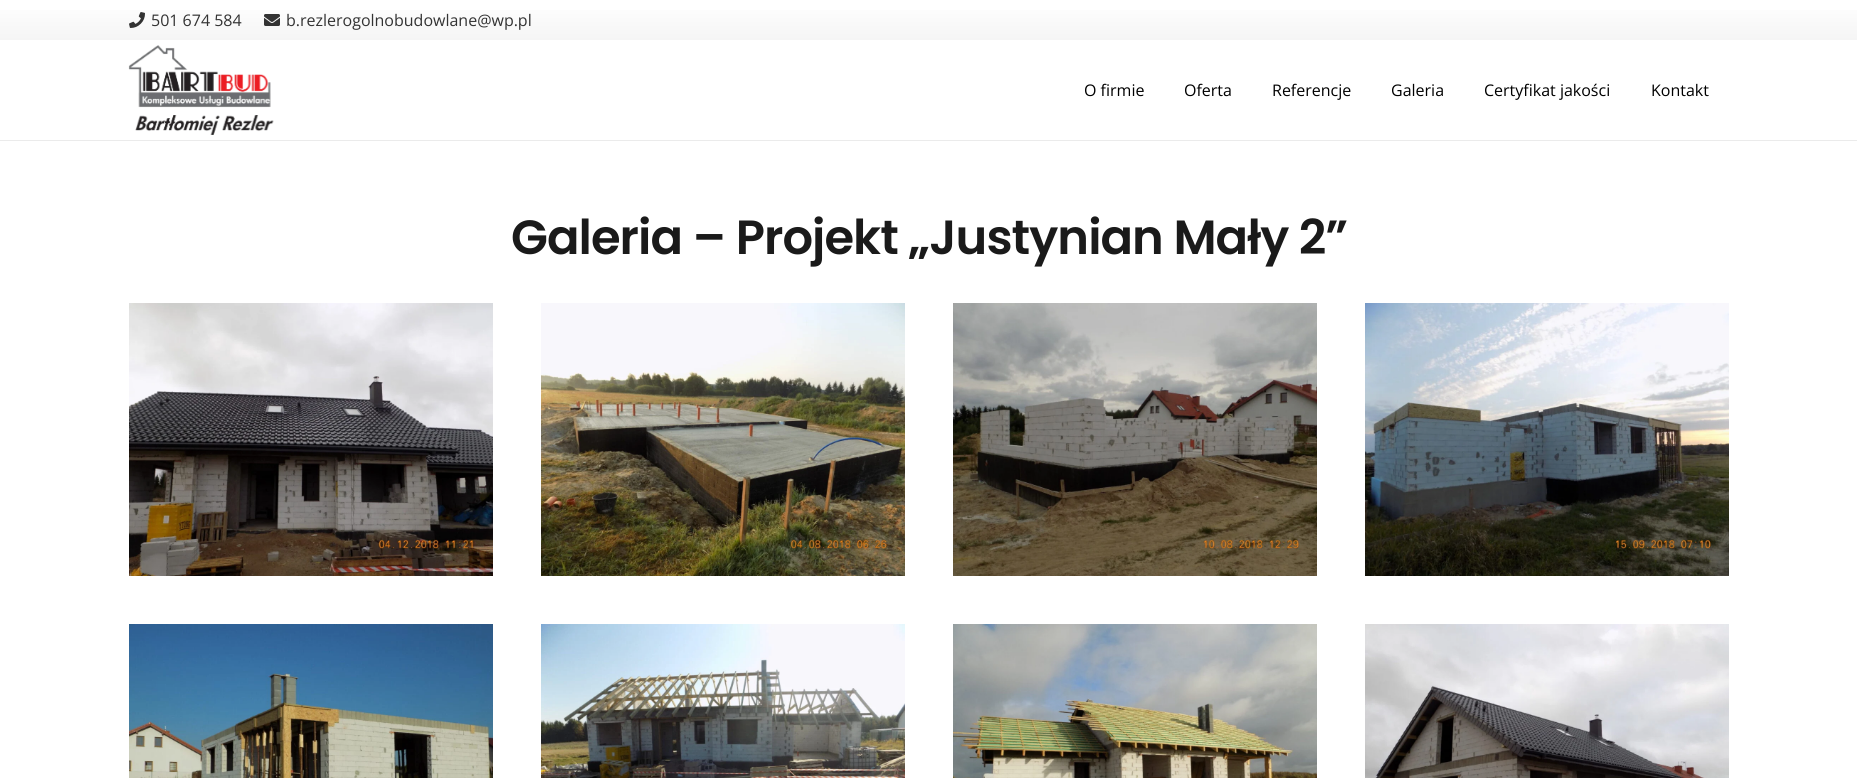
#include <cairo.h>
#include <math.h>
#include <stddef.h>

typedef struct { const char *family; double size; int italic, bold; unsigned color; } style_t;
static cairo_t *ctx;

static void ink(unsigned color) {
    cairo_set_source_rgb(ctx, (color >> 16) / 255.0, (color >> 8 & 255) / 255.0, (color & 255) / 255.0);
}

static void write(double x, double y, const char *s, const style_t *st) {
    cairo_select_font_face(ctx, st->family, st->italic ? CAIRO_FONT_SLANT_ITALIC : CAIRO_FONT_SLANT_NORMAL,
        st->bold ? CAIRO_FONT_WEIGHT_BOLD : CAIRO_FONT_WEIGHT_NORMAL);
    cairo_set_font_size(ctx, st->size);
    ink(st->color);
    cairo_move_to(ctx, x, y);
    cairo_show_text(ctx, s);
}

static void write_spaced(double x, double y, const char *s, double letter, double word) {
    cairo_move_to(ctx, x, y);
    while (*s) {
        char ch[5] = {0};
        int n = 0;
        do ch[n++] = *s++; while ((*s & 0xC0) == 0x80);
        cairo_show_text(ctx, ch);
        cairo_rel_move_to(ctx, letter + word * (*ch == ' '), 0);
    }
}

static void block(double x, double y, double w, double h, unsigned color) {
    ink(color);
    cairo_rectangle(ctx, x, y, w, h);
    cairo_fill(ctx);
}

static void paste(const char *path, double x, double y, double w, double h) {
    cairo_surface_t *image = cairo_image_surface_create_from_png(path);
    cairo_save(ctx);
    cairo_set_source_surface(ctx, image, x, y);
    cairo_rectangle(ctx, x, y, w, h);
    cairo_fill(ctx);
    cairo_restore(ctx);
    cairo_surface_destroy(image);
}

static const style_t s1 = {"Open Sans", 16, 0, 0, 0x333333};
static const style_t s2 = {"Open Sans", 16, 0, 0, 0x000000};

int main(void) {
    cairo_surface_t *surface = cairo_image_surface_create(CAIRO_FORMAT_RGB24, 1857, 778);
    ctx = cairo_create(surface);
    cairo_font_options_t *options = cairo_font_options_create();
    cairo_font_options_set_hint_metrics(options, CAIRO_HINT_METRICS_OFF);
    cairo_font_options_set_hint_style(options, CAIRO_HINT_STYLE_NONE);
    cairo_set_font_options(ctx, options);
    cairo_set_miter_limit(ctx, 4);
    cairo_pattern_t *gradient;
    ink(0xffffff);
    cairo_paint(ctx);
    gradient = cairo_pattern_create_linear(929, 40, 929, 0);
    cairo_pattern_add_color_stop_rgba(gradient, 0, 0.961, 0.961, 0.961, 1);
    cairo_pattern_add_color_stop_rgba(gradient, 1, 1, 1, 1, 1);
    cairo_set_source(ctx, gradient);
    cairo_pattern_destroy(gradient);
    cairo_rectangle(ctx, 0, 10, 1857, 30);
    cairo_fill(ctx);
    paste("pic1.png", 129, 12, 16, 16);
    write(151, 26, "501 674 584", &s1);
    paste("pic2.png", 264, 14, 16, 12);
    write(286, 26, "b.rezlerogolnobudowlane@wp.pl", &s1);
    block(0, 140, 1857, 1, 0xebebeb);
    paste("pic3.png", 128, 45, 146, 90);
    write(1084, 96, "O firmie", &s2);
    write(1184, 96, "Oferta", &s2);
    write(1272, 96, "Referencje", &s2);
    write(1391, 96, "Galeria", &s2);
    write(1484, 96, "Certyfikat jakości", &s2);
    write(1651, 96, "Kontakt", &s2);
    cairo_select_font_face(ctx, "Poppins SemiBold", CAIRO_FONT_SLANT_NORMAL, CAIRO_FONT_WEIGHT_NORMAL);
    cairo_set_font_size(ctx, 48);
    ink(0x1a1a1a);
    write_spaced(511, 254, "Galeria – Projekt „Justynian Mały 2”", -0.95, 0);
    paste("pic4.png", 129, 303, 364, 273);
    paste("pic5.png", 541, 303, 364, 273);
    paste("pic6.png", 953, 303, 364, 273);
    paste("pic7.png", 1365, 303, 364, 273);
    paste("pic8.png", 129, 624, 364, 154);
    paste("pic9.png", 541, 624, 364, 154);
    paste("pic10.png", 953, 624, 364, 154);
    paste("pic11.png", 1365, 624, 364, 154);
    cairo_surface_write_to_png(surface, "screenshot.png");
    cairo_font_options_destroy(options);
    cairo_destroy(ctx);
    cairo_surface_destroy(surface);
    return 0;
}
